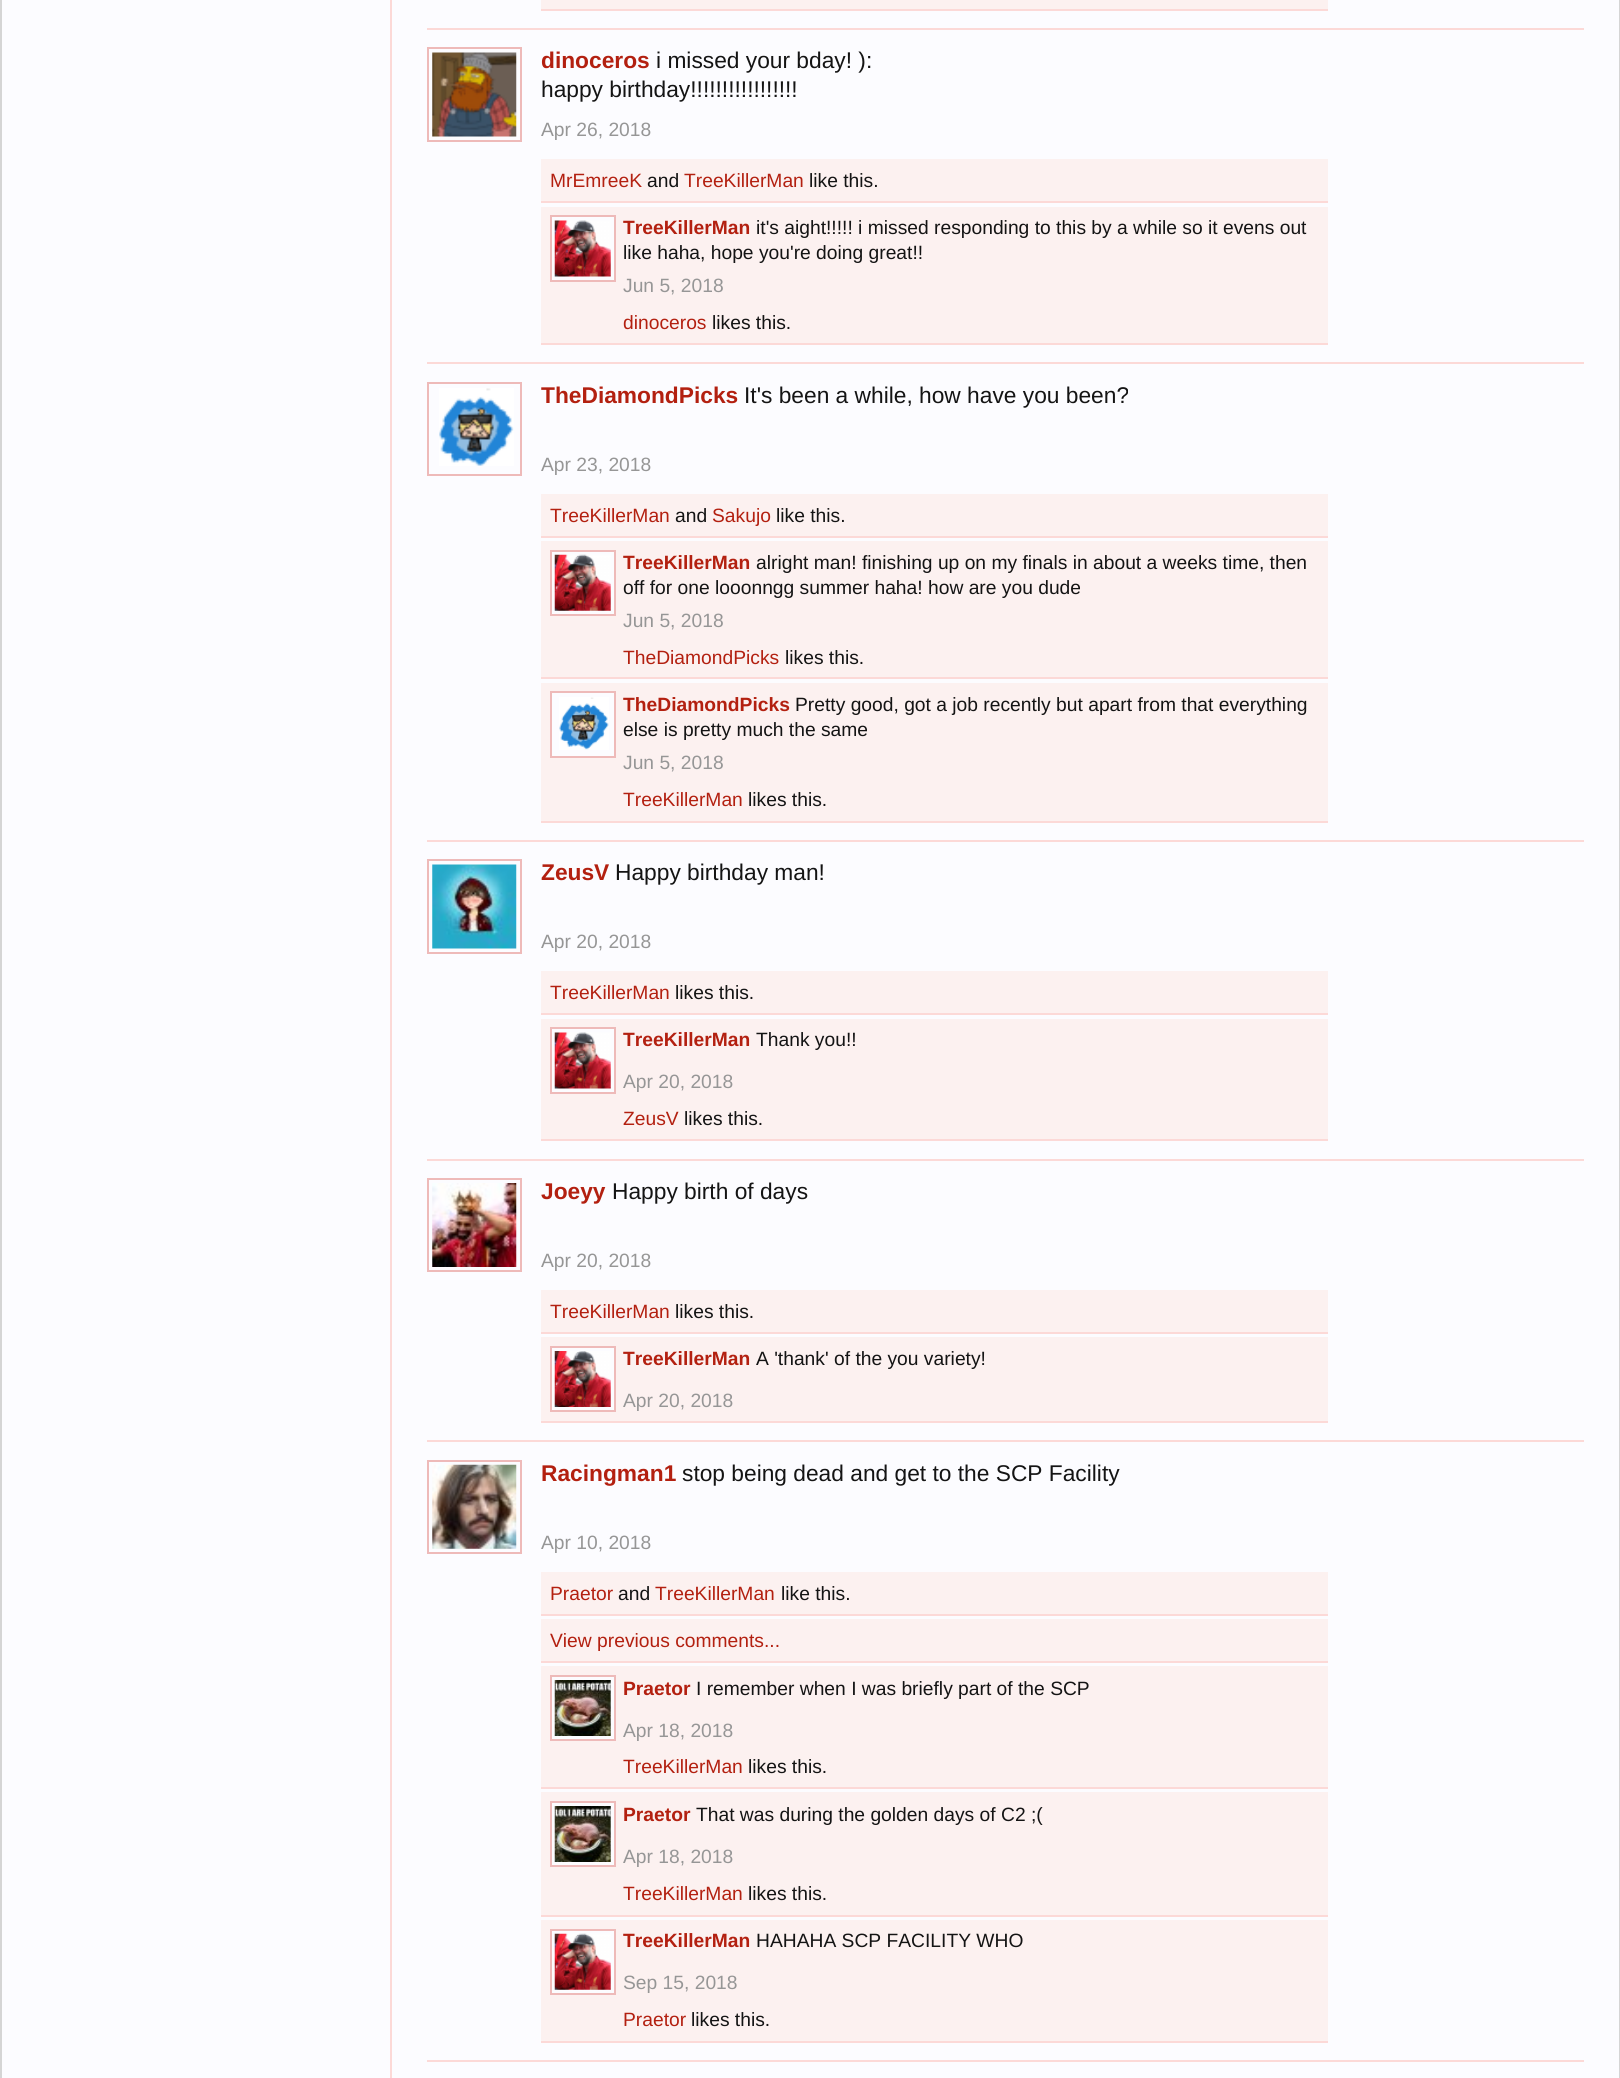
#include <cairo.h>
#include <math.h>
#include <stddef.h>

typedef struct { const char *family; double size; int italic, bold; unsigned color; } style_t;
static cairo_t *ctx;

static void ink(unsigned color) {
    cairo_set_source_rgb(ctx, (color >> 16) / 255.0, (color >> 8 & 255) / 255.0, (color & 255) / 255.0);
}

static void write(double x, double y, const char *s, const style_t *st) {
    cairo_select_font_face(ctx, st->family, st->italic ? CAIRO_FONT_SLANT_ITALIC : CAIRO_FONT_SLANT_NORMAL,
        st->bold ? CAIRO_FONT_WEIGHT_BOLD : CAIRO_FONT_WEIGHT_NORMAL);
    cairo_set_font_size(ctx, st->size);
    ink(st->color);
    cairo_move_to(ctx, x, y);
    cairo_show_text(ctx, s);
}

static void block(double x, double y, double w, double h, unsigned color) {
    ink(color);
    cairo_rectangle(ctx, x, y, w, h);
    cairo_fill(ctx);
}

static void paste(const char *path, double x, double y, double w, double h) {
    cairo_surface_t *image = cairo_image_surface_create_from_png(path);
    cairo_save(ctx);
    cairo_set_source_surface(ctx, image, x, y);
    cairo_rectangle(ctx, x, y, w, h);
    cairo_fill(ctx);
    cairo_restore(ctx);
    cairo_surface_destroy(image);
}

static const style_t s1 = {"Liberation Sans", 22.75, 0, 1, 0xb32010};
static const style_t s2 = {"Liberation Sans", 22.75, 0, 0, 0x141414};
static const style_t s3 = {"Liberation Sans", 19.25, 0, 0, 0x969696};
static const style_t s4 = {"Liberation Sans", 19.25, 0, 0, 0xb32010};
static const style_t s5 = {"Liberation Sans", 19.25, 0, 0, 0x141414};
static const style_t s6 = {"Liberation Sans", 19.25, 0, 1, 0xb32010};

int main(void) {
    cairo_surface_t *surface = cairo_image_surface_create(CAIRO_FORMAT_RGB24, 1620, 2078);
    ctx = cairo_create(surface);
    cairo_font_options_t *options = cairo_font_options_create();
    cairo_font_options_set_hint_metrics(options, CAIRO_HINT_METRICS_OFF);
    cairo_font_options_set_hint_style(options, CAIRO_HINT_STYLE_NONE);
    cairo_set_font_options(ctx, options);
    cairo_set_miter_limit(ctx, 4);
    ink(0xfcfcff);
    cairo_paint(ctx);
    cairo_rectangle(ctx, 1, -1, 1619, 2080);
    ink(0xd5d5d5);
    cairo_stroke(ctx);
    block(390, 0, 2, 2078, 0xfcd9d7);
    block(427, 28, 1157, 2, 0xfcd9d7);
    block(541, 0, 787, 9, 0xfcf1f0);
    block(541, 9, 787, 2, 0xfcd9d7);
    block(427, 362, 1157, 2, 0xfcd9d7);
    cairo_rectangle(ctx, 428, 48, 93, 93);
    ink(0xeebab9);
    cairo_stroke(ctx);
    paste("pic1.png", 432, 52, 85, 85);
    write(541, 68, "dinoceros", &s1);
    write(656, 68, "i missed your bday! ):", &s2);
    write(541, 97, "happy birthday!!!!!!!!!!!!!!!!!", &s2);
    write(541, 136, "Apr 26, 2018", &s3);
    block(541, 159, 787, 42, 0xfcf1f0);
    block(541, 201, 787, 2, 0xfcd9d7);
    write(550, 187, "MrEmreeK", &s4);
    write(647, 187, "and", &s5);
    write(684, 187, "TreeKillerMan", &s4);
    write(809, 187, "like this.", &s5);
    block(541, 207, 787, 136, 0xfcf1f0);
    block(541, 343, 787, 2, 0xfcd9d7);
    ink(0xfcfcff);
    cairo_rectangle(ctx, 551, 216, 64, 65);
    cairo_fill_preserve(ctx);
    ink(0xeebab9);
    cairo_stroke(ctx);
    paste("pic2.png", 554, 220, 57, 57);
    write(623, 234, "TreeKillerMan", &s6);
    write(756, 234, "it's aight!!!!! i missed responding to this by a while so it evens out", &s5);
    write(623, 259, "like haha, hope you're doing great!!", &s5);
    write(623, 292, "Jun 5, 2018", &s3);
    write(623, 329, "dinoceros", &s4);
    write(712, 329, "likes this.", &s5);
    block(427, 840, 1157, 2, 0xfcd9d7);
    cairo_rectangle(ctx, 428, 383, 93, 92);
    ink(0xeebab9);
    cairo_stroke(ctx);
    paste("pic3.png", 439, 388, 75, 78);
    write(541, 403, "TheDiamondPicks", &s1);
    write(744, 403, "It's been a while, how have you been?", &s2);
    write(541, 471, "Apr 23, 2018", &s3);
    block(541, 494, 787, 42, 0xfcf1f0);
    block(541, 536, 787, 2, 0xfcd9d7);
    write(550, 522, "TreeKillerMan", &s4);
    write(675, 522, "and", &s5);
    write(712, 522, "Sakujo", &s4);
    write(776, 522, "like this.", &s5);
    block(541, 541, 787, 136, 0xfcf1f0);
    block(541, 677, 787, 2, 0xfcd9d7);
    ink(0xfcfcff);
    cairo_rectangle(ctx, 551, 551, 64, 64);
    cairo_fill_preserve(ctx);
    ink(0xeebab9);
    cairo_stroke(ctx);
    paste("pic4.png", 554, 554, 57, 57);
    write(623, 569, "TreeKillerMan", &s6);
    write(756, 569, "alright man! finishing up on my finals in about a weeks time, then", &s5);
    write(623, 594, "off for one looonngg summer haha! how are you dude", &s5);
    write(623, 627, "Jun 5, 2018", &s3);
    write(623, 664, "TheDiamondPicks", &s4);
    write(785, 664, "likes this.", &s5);
    block(541, 683, 787, 138, 0xfcf1f0);
    block(541, 821, 787, 2, 0xfcd9d7);
    ink(0xfcfcff);
    cairo_rectangle(ctx, 551, 692, 64, 65);
    cairo_fill_preserve(ctx);
    ink(0xeebab9);
    cairo_stroke(ctx);
    paste("pic5.png", 559, 697, 50, 53);
    write(623, 711, "TheDiamondPicks", &s6);
    write(795, 711, "Pretty good, got a job recently but apart from that everything", &s5);
    write(623, 736, "else is pretty much the same", &s5);
    write(623, 769, "Jun 5, 2018", &s3);
    write(623, 806, "TreeKillerMan", &s4);
    write(748, 806, "likes this.", &s5);
    block(427, 1159, 1157, 2, 0xfcd9d7);
    cairo_rectangle(ctx, 428, 860, 93, 93);
    ink(0xeebab9);
    cairo_stroke(ctx);
    paste("pic6.png", 432, 864, 85, 85);
    write(541, 880, "ZeusV", &s1);
    write(615, 880, "Happy birthday man!", &s2);
    write(541, 948, "Apr 20, 2018", &s3);
    block(541, 971, 787, 42, 0xfcf1f0);
    block(541, 1013, 787, 2, 0xfcd9d7);
    write(550, 999, "TreeKillerMan", &s4);
    write(675, 999, "likes this.", &s5);
    block(541, 1019, 787, 120, 0xfcf1f0);
    block(541, 1139, 787, 2, 0xfcd9d7);
    ink(0xfcfcff);
    cairo_rectangle(ctx, 551, 1028, 64, 65);
    cairo_fill_preserve(ctx);
    ink(0xeebab9);
    cairo_stroke(ctx);
    paste("pic7.png", 554, 1032, 57, 57);
    write(623, 1046, "TreeKillerMan", &s6);
    write(756, 1046, "Thank you!!", &s5);
    write(623, 1088, "Apr 20, 2018", &s3);
    write(623, 1125, "ZeusV", &s4);
    write(684, 1125, "likes this.", &s5);
    block(427, 1440, 1157, 2, 0xfcd9d7);
    cairo_rectangle(ctx, 428, 1179, 93, 92);
    ink(0xeebab9);
    cairo_stroke(ctx);
    paste("pic8.png", 432, 1183, 85, 84);
    write(541, 1199, "Joeyy", &s1);
    write(612, 1199, "Happy birth of days", &s2);
    write(541, 1267, "Apr 20, 2018", &s3);
    block(541, 1290, 787, 42, 0xfcf1f0);
    block(541, 1332, 787, 2, 0xfcd9d7);
    write(550, 1318, "TreeKillerMan", &s4);
    write(675, 1318, "likes this.", &s5);
    block(541, 1337, 787, 84, 0xfcf1f0);
    block(541, 1421, 787, 2, 0xfcd9d7);
    ink(0xfcfcff);
    cairo_rectangle(ctx, 551, 1347, 64, 64);
    cairo_fill_preserve(ctx);
    ink(0xeebab9);
    cairo_stroke(ctx);
    paste("pic9.png", 554, 1351, 57, 56);
    write(623, 1365, "TreeKillerMan", &s6);
    write(756, 1365, "A 'thank' of the you variety!", &s5);
    write(623, 1407, "Apr 20, 2018", &s3);
    block(427, 2060, 1157, 2, 0xfcd9d7);
    cairo_rectangle(ctx, 428, 1461, 93, 92);
    ink(0xeebab9);
    cairo_stroke(ctx);
    paste("pic10.png", 432, 1464, 85, 85);
    write(541, 1481, "Racingman1", &s1);
    write(682, 1481, "stop being dead and get to the SCP Facility", &s2);
    write(541, 1549, "Apr 10, 2018", &s3);
    block(541, 1572, 787, 42, 0xfcf1f0);
    block(541, 1614, 787, 2, 0xfcd9d7);
    write(550, 1600, "Praetor", &s4);
    write(618, 1600, "and", &s5);
    write(655, 1600, "TreeKillerMan", &s4);
    write(781, 1600, "like this.", &s5);
    block(541, 1619, 787, 42, 0xfcf1f0);
    block(541, 1661, 787, 2, 0xfcd9d7);
    write(550, 1647, "View previous comments...", &s4);
    block(541, 1666, 787, 121, 0xfcf1f0);
    block(541, 1787, 787, 2, 0xfcd9d7);
    ink(0xfcfcff);
    cairo_rectangle(ctx, 551, 1676, 64, 64);
    cairo_fill_preserve(ctx);
    ink(0xeebab9);
    cairo_stroke(ctx);
    paste("pic11.png", 554, 1680, 57, 56);
    write(623, 1695, "Praetor", &s6);
    write(696, 1695, "I remember when I was briefly part of the SCP", &s5);
    write(623, 1737, "Apr 18, 2018", &s3);
    write(623, 1773, "TreeKillerMan", &s4);
    write(748, 1773, "likes this.", &s5);
    block(541, 1792, 787, 123, 0xfcf1f0);
    block(541, 1915, 787, 2, 0xfcd9d7);
    ink(0xfcfcff);
    cairo_rectangle(ctx, 551, 1802, 64, 64);
    cairo_fill_preserve(ctx);
    ink(0xeebab9);
    cairo_stroke(ctx);
    paste("pic12.png", 554, 1806, 57, 56);
    write(623, 1821, "Praetor", &s6);
    write(696, 1821, "That was during the golden days of C2 ;(", &s5);
    write(623, 1863, "Apr 18, 2018", &s3);
    write(623, 1900, "TreeKillerMan", &s4);
    write(748, 1900, "likes this.", &s5);
    block(541, 1920, 787, 121, 0xfcf1f0);
    block(541, 2041, 787, 2, 0xfcd9d7);
    ink(0xfcfcff);
    cairo_rectangle(ctx, 551, 1930, 64, 64);
    cairo_fill_preserve(ctx);
    ink(0xeebab9);
    cairo_stroke(ctx);
    paste("pic13.png", 554, 1933, 57, 57);
    write(623, 1947, "TreeKillerMan", &s6);
    write(756, 1947, "HAHAHA SCP FACILITY WHO", &s5);
    write(623, 1989, "Sep 15, 2018", &s3);
    write(623, 2026, "Praetor", &s4);
    write(691, 2026, "likes this.", &s5);
    cairo_surface_write_to_png(surface, "screenshot.png");
    cairo_font_options_destroy(options);
    cairo_destroy(ctx);
    cairo_surface_destroy(surface);
    return 0;
}
